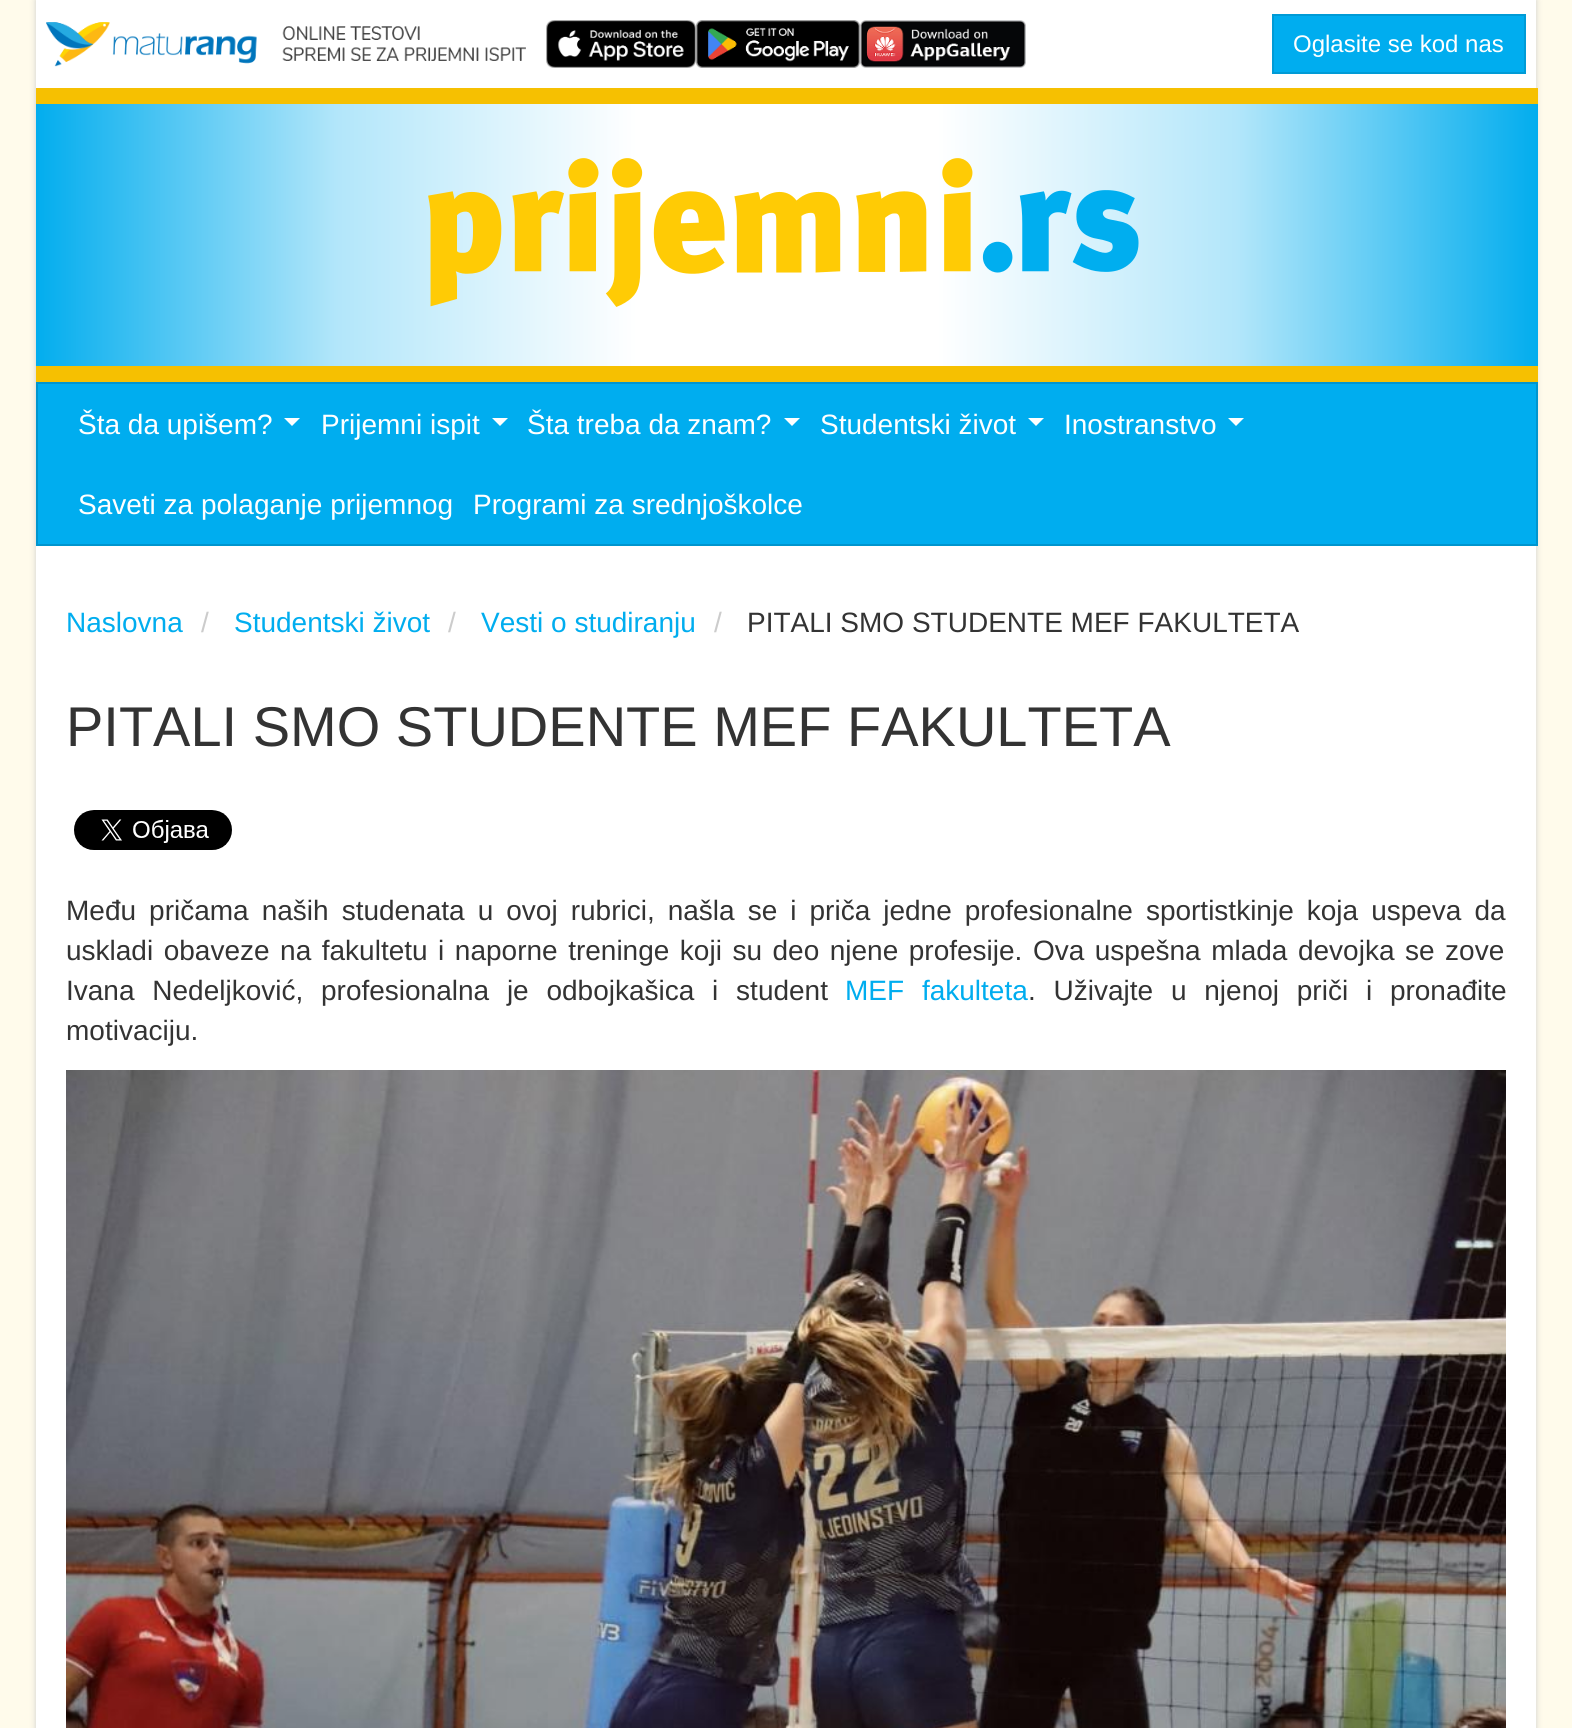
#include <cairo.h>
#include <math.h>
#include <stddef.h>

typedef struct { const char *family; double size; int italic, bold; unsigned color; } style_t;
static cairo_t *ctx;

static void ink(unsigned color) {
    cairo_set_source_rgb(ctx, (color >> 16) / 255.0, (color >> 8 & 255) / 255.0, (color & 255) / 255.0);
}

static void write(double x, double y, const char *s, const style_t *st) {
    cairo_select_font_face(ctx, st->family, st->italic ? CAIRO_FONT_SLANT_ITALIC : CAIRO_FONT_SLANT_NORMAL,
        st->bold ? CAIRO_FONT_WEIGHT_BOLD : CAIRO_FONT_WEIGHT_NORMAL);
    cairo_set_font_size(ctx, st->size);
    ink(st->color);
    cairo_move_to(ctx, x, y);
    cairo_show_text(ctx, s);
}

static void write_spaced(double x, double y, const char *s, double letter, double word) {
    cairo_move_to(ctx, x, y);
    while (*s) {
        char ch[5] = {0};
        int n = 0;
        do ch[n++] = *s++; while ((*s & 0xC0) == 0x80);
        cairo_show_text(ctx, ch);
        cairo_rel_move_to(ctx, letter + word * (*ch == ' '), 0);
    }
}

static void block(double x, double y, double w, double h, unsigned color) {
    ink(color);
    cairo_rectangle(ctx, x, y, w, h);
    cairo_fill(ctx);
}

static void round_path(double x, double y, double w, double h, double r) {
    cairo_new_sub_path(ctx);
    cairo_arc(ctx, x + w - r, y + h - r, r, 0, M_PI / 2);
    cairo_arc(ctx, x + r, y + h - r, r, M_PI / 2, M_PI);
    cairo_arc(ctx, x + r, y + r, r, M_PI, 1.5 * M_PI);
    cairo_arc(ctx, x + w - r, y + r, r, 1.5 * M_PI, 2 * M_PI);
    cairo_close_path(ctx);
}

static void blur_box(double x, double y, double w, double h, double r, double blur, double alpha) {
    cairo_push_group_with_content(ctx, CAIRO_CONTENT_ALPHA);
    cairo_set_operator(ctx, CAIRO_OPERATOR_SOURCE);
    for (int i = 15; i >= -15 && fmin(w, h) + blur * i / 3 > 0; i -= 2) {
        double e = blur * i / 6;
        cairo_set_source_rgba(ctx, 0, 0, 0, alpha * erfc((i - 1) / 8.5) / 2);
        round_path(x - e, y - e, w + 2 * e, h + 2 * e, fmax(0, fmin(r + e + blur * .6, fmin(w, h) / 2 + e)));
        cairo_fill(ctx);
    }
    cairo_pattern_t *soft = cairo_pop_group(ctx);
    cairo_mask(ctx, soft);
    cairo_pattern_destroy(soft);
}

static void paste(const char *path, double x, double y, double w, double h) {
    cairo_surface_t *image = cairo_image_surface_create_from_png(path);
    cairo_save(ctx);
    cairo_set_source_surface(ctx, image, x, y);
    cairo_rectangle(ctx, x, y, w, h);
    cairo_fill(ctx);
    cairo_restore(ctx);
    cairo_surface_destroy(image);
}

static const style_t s1 = {"Liberation Sans", 24, 0, 0, 0xffffff};
static const style_t s2 = {"Liberation Sans", 28, 0, 0, 0xffffff};
static const style_t s3 = {"Liberation Sans", 28, 0, 0, 0x00adef};
static const style_t s4 = {"Liberation Sans", 28, 0, 0, 0xcccccc};
static const style_t s5 = {"Liberation Sans", 28, 0, 0, 0x333333};
static const style_t s6 = {"Liberation Sans", 56, 0, 0, 0x333333};

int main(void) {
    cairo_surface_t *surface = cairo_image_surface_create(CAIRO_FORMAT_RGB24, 1572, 1728);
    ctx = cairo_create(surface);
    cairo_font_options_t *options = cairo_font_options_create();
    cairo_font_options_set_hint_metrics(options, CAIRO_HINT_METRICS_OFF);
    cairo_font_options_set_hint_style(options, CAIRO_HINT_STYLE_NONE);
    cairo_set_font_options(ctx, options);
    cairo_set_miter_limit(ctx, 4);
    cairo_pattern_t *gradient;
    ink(0xfffbeb);
    cairo_paint(ctx);
    ink(0xcccccc);
    blur_box(36, 0, 1500, 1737, 0, 3, 1);
    block(36, 0, 1500, 1728, 0xffffff);
    paste("pic1.png", 46, 22, 480, 45);
    paste("pic2.png", 546, 20, 150, 48);
    paste("pic3.png", 696, 20, 164, 48);
    paste("pic4.png", 860, 20, 166, 48);
    ink(0x00adef);
    cairo_rectangle(ctx, 1273, 15, 252, 58);
    cairo_fill_preserve(ctx);
    ink(0x009bd6);
    cairo_stroke(ctx);
    write(1293, 52, "Oglasite se kod nas", &s1);
    block(36, 88, 1502, 294, 0xf6c001);
    gradient = cairo_pattern_create_linear(36, 235, 1538, 235);
    cairo_pattern_add_color_stop_rgba(gradient, 0, 0.008, 0.678, 0.933, 1);
    cairo_pattern_add_color_stop_rgba(gradient, 0.2, 0.698, 0.902, 0.98, 1);
    cairo_pattern_add_color_stop_rgba(gradient, 0.4, 1, 1, 1, 1);
    cairo_pattern_add_color_stop_rgba(gradient, 0.6, 1, 1, 1, 1);
    cairo_pattern_add_color_stop_rgba(gradient, 0.8, 0.698, 0.902, 0.98, 1);
    cairo_pattern_add_color_stop_rgba(gradient, 1, 0.008, 0.678, 0.933, 1);
    cairo_set_source(ctx, gradient);
    cairo_pattern_destroy(gradient);
    cairo_rectangle(ctx, 36, 104, 1502, 262);
    cairo_fill(ctx);
    paste("pic5.png", 428, 158, 711, 149);
    ink(0x00adef);
    cairo_rectangle(ctx, 37, 383, 1500, 162);
    cairo_fill_preserve(ctx);
    ink(0x0095ce);
    cairo_stroke(ctx);
    write(78, 434, "Šta da upišem?", &s2);
    cairo_new_path(ctx);
    cairo_move_to(ctx, 284, 418);
    cairo_line_to(ctx, 300, 418);
    cairo_line_to(ctx, 292, 426);
    cairo_close_path(ctx);
    cairo_fill(ctx);
    write(321, 434, "Prijemni ispit", &s2);
    cairo_new_path(ctx);
    cairo_move_to(ctx, 492, 418);
    cairo_line_to(ctx, 508, 418);
    cairo_line_to(ctx, 500, 426);
    cairo_close_path(ctx);
    cairo_fill(ctx);
    write(527, 434, "Šta treba da znam?", &s2);
    cairo_new_path(ctx);
    cairo_move_to(ctx, 784, 418);
    cairo_line_to(ctx, 800, 418);
    cairo_line_to(ctx, 792, 426);
    cairo_close_path(ctx);
    cairo_fill(ctx);
    write(820, 434, "Studentski život", &s2);
    cairo_new_path(ctx);
    cairo_move_to(ctx, 1028, 418);
    cairo_line_to(ctx, 1044, 418);
    cairo_line_to(ctx, 1036, 426);
    cairo_close_path(ctx);
    cairo_fill(ctx);
    write(1064, 434, "Inostranstvo", &s2);
    cairo_new_path(ctx);
    cairo_move_to(ctx, 1228, 418);
    cairo_line_to(ctx, 1244, 418);
    cairo_line_to(ctx, 1236, 426);
    cairo_close_path(ctx);
    cairo_fill(ctx);
    write(78, 514, "Saveti za polaganje prijemnog", &s2);
    write(473, 514, "Programi za srednjoškolce", &s2);
    write(66, 632, "Naslovna", &s3);
    write(201, 632, "/", &s4);
    write(234, 632, "Studentski život", &s3);
    write(448, 632, "/", &s4);
    write(481, 632, "Vesti o studiranju", &s3);
    write(714, 632, "/", &s4);
    write(747, 632, "PITALI SMO STUDENTE MEF FAKULTETA", &s5);
    write(66, 746, "PITALI SMO STUDENTE MEF FAKULTETA", &s6);
    paste("pic6.png", 74, 810, 158, 40);
    cairo_set_font_size(ctx, 28);
    write_spaced(66, 920, "Među pričama naših studenata u ovoj rubrici, našla se i priča jedne profesionalne sportistkinje koja uspeva da", 0, 5.25);
    write_spaced(66, 960, "uskladi obaveze na fakultetu i naporne treninge koji su deo njene profesije. Ova uspešna mlada devojka se zove", 0, 2.75);
    write_spaced(66, 1000, "Ivana Nedeljković, profesionalna je odbojkašica i student", 0, 10);
    ink(0x00adef);
    write_spaced(845, 1000, "MEF fakulteta", 0, 10);
    ink(0x333333);
    write_spaced(1028, 1000, ". Uživajte u njenoj priči i pronađite", 0, 10);
    write(66, 1040, "motivaciju.", &s5);
    paste("pic7.png", 66, 1070, 1440, 658);
    cairo_surface_write_to_png(surface, "screenshot.png");
    cairo_font_options_destroy(options);
    cairo_destroy(ctx);
    cairo_surface_destroy(surface);
    return 0;
}
